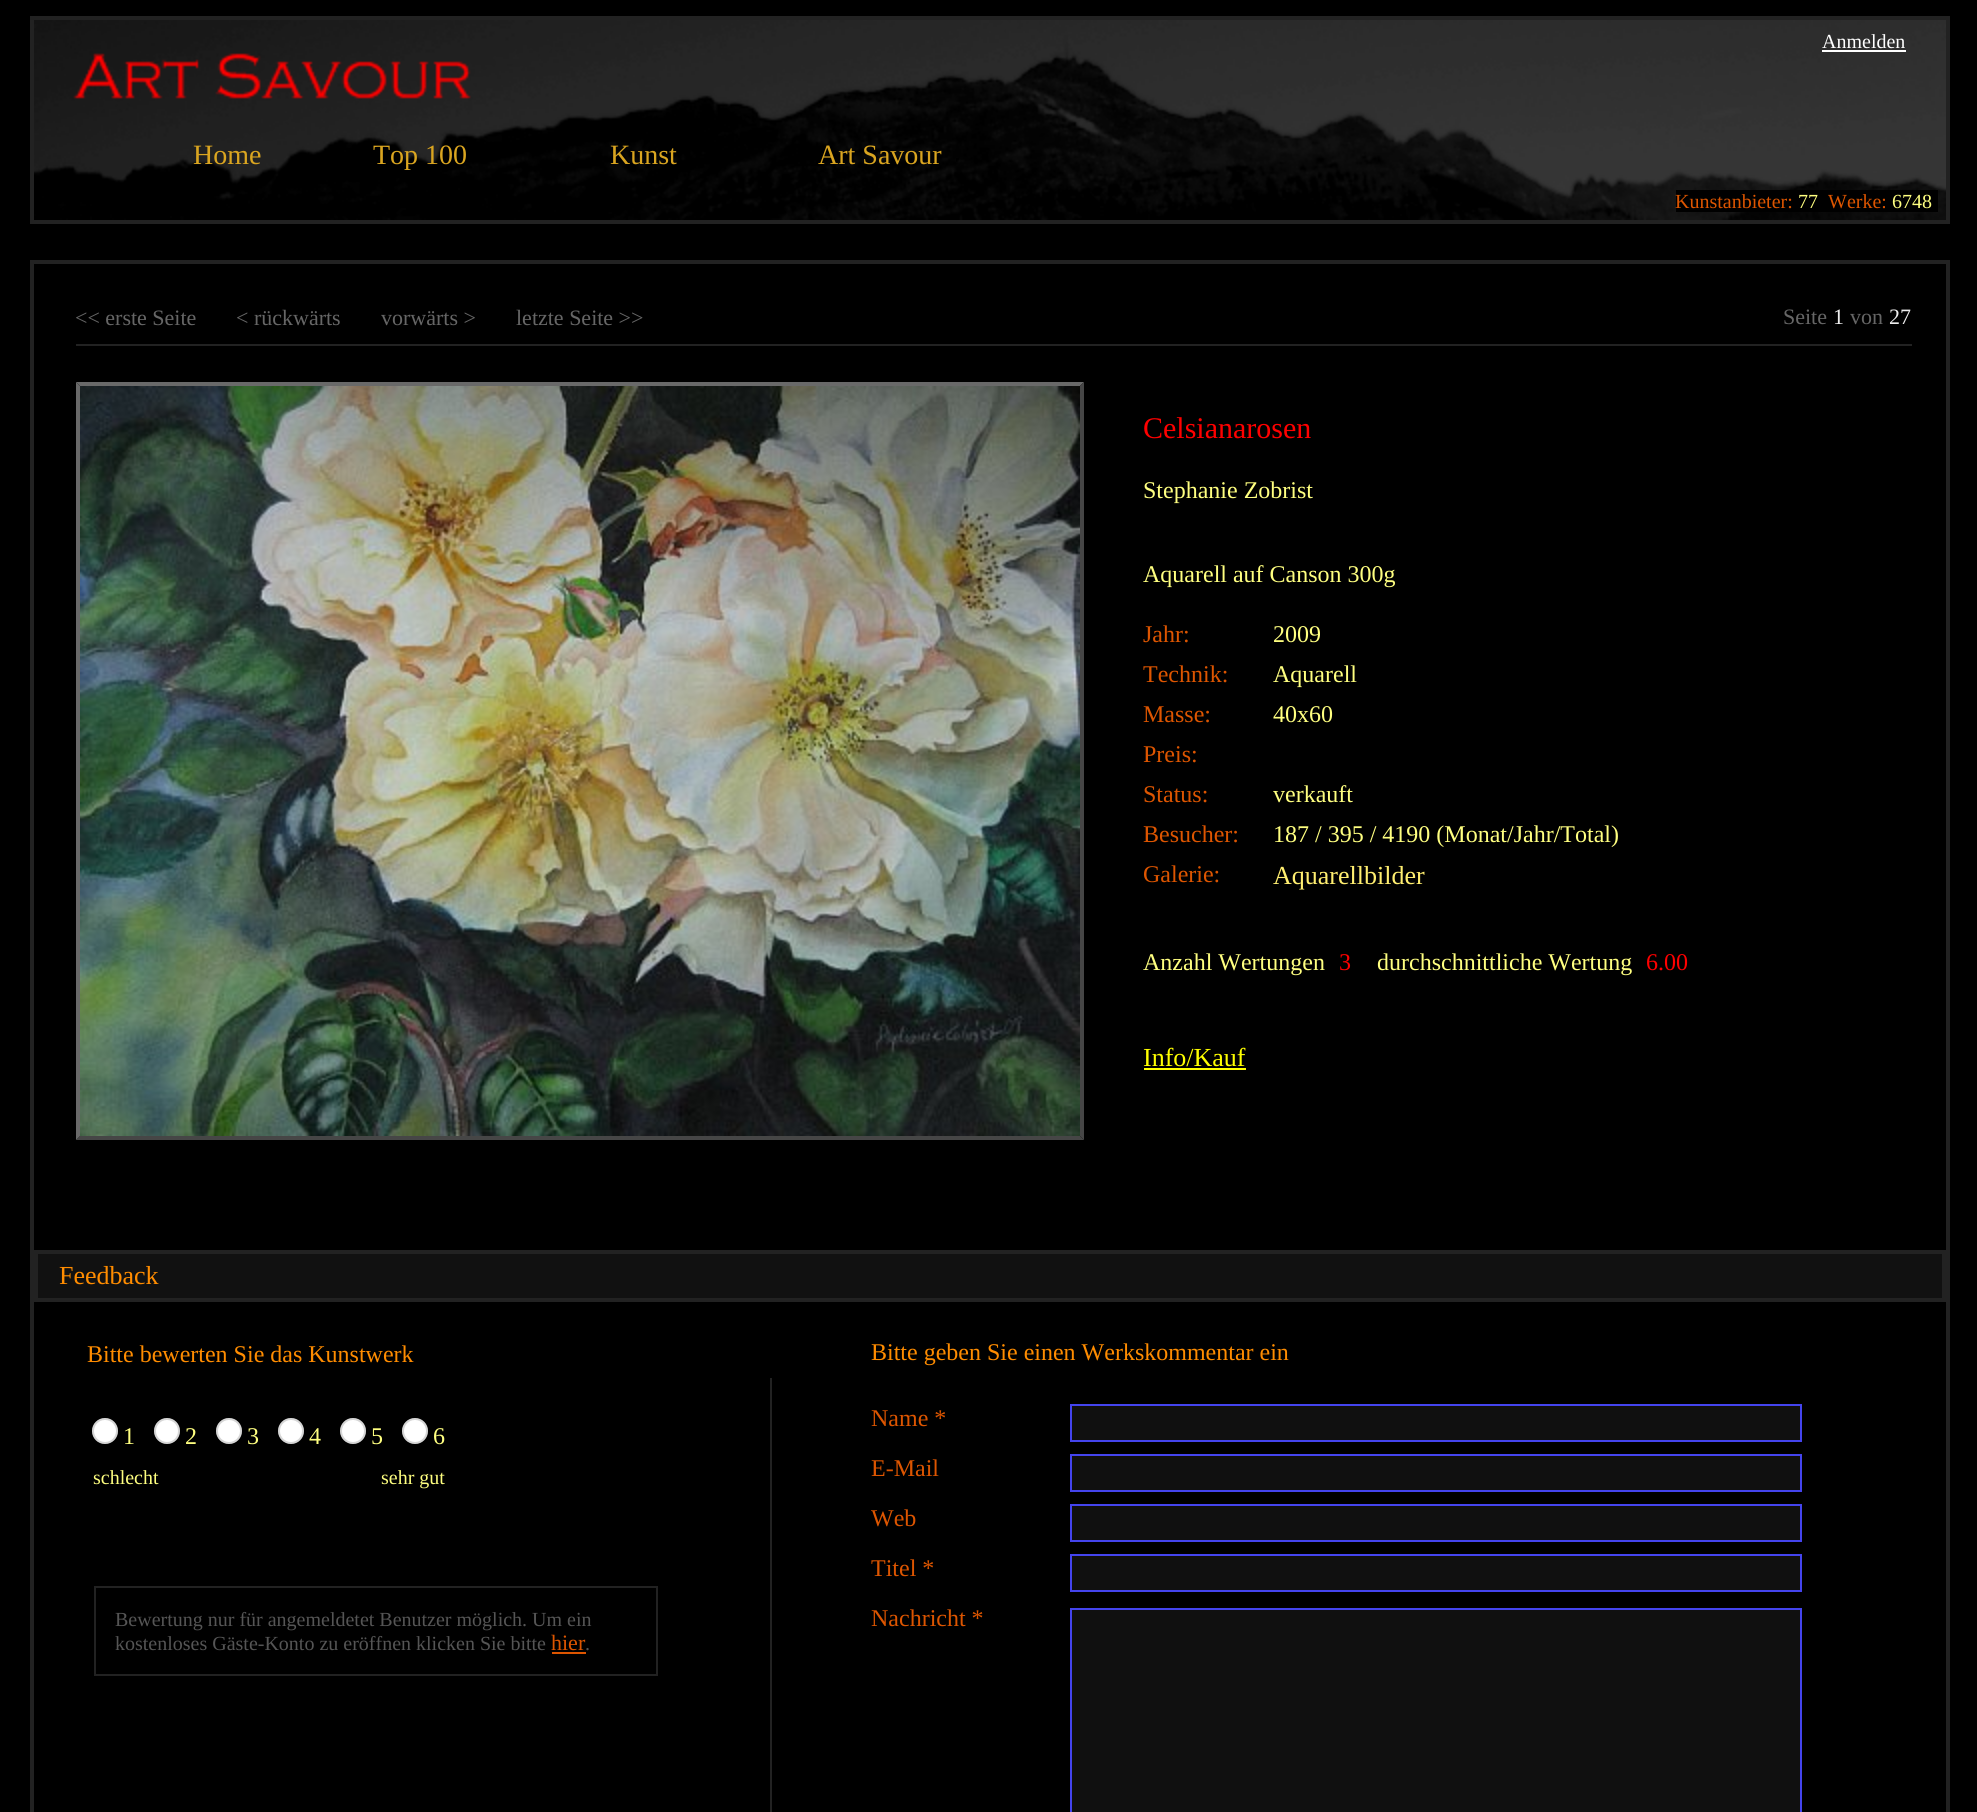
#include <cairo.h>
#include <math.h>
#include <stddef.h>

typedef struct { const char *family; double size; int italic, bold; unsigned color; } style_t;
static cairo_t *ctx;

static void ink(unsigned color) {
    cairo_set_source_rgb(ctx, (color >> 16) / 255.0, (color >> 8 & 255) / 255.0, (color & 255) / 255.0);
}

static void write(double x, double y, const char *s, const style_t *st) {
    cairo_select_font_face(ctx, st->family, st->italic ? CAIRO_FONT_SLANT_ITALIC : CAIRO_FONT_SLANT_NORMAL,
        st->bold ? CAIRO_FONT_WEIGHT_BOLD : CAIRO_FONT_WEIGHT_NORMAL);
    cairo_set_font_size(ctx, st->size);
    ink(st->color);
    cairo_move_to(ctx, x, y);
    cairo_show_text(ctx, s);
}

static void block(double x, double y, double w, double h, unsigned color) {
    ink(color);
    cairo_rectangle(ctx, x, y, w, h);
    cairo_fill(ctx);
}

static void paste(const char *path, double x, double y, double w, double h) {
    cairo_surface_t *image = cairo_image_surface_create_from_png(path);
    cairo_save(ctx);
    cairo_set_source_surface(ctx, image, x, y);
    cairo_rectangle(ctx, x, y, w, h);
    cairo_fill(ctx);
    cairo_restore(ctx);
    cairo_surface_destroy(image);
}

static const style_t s1 = {"Liberation Serif", 28, 0, 0, 0xdaa520};
static const style_t s2 = {"Liberation Serif", 20, 0, 0, 0xffffff};
static const style_t s3 = {"Liberation Serif", 20, 0, 0, 0xdd5500};
static const style_t s4 = {"Liberation Serif", 20, 0, 0, 0xffff80};
static const style_t s5 = {"Liberation Serif", 22, 0, 0, 0x666666};
static const style_t s6 = {"Liberation Serif", 22, 0, 0, 0xeeeeee};
static const style_t s7 = {"Liberation Serif", 30, 0, 0, 0xff0000};
static const style_t s8 = {"Liberation Serif", 24, 0, 0, 0xffff80};
static const style_t s9 = {"Liberation Serif", 24, 0, 0, 0xdd5500};
static const style_t s10 = {"Liberation Serif", 26, 0, 0, 0xffee70};
static const style_t s11 = {"Liberation Serif", 24, 0, 0, 0xff0000};
static const style_t s12 = {"Liberation Serif", 26, 0, 0, 0xffff00};
static const style_t s13 = {"Liberation Serif", 26, 0, 0, 0xff8c00};
static const style_t s14 = {"Liberation Serif", 24, 0, 0, 0xff8c00};
static const style_t s15 = {"Liberation Serif", 20, 0, 0, 0x555555};
static const style_t s16 = {"Liberation Serif", 22, 0, 0, 0xdd5500};

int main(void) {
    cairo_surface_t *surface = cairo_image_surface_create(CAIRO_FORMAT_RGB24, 1977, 1812);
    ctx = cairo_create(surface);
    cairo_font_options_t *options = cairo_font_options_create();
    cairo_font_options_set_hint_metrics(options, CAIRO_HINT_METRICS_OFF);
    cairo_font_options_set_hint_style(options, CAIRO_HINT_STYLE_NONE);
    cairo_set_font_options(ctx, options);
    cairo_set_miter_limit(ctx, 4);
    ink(0x000000);
    cairo_paint(ctx);
    cairo_rectangle(ctx, 32, 18, 1916, 204);
    ink(0x222222);
    cairo_set_line_width(ctx, 4);
    cairo_stroke(ctx);
    paste("pic1.png", 34, 20, 1912, 200);
    write(193, 164, "Home", &s1);
    write(373, 164, "Top 100", &s1);
    write(610, 164, "Kunst", &s1);
    write(818, 164, "Art Savour", &s1);
    paste("pic2.png", 956, 158, 3, 4);
    write(1822, 48, "Anmelden", &s2);
    block(1822, 50, 84, 2, 0xffffff);
    block(1676, 190, 262, 22, 0x000000);
    write(1675, 208, "Kunstanbieter:", &s3);
    write(1798, 208, "77", &s4);
    write(1828, 208, "Werke:", &s3);
    write(1892, 208, "6748", &s4);
    block(30, 260, 1920, 4, 0x222222);
    block(1946, 260, 4, 1552, 0x222222);
    block(30, 260, 4, 1552, 0x222222);
    write(75, 325, "<< erste Seite", &s5);
    write(236, 325, "< rückwärts", &s5);
    write(381, 325, "vorwärts >", &s5);
    write(516, 325, "letzte Seite >>", &s5);
    write(1783, 324, "Seite", &s5);
    write(1833, 324, "1", &s6);
    write(1850, 324, "von", &s5);
    write(1889, 324, "27", &s6);
    block(76, 344, 1836, 2, 0x222222);
    ink(0x696969);
    cairo_new_path(ctx);
    cairo_move_to(ctx, 76, 382);
    cairo_line_to(ctx, 1084, 382);
    cairo_line_to(ctx, 1080, 386);
    cairo_line_to(ctx, 80, 386);
    cairo_close_path(ctx);
    cairo_fill(ctx);
    ink(0x464646);
    cairo_new_path(ctx);
    cairo_move_to(ctx, 1084, 382);
    cairo_line_to(ctx, 1084, 1140);
    cairo_line_to(ctx, 1080, 1136);
    cairo_line_to(ctx, 1080, 386);
    cairo_close_path(ctx);
    cairo_fill(ctx);
    cairo_new_path(ctx);
    cairo_move_to(ctx, 1084, 1140);
    cairo_line_to(ctx, 76, 1140);
    cairo_line_to(ctx, 80, 1136);
    cairo_line_to(ctx, 1080, 1136);
    cairo_close_path(ctx);
    cairo_fill(ctx);
    ink(0x696969);
    cairo_new_path(ctx);
    cairo_move_to(ctx, 76, 1140);
    cairo_line_to(ctx, 76, 382);
    cairo_line_to(ctx, 80, 386);
    cairo_line_to(ctx, 80, 1136);
    cairo_close_path(ctx);
    cairo_fill(ctx);
    paste("pic3.png", 80, 386, 1000, 750);
    write(1143, 438, "Celsianarosen", &s7);
    write(1143, 498, "Stephanie Zobrist", &s8);
    write(1143, 582, "Aquarell auf Canson 300g", &s8);
    write(1143, 642, "Jahr:", &s9);
    write(1273, 642, "2009", &s8);
    write(1143, 682, "Technik:", &s9);
    write(1273, 682, "Aquarell", &s8);
    write(1143, 722, "Masse:", &s9);
    write(1273, 722, "40x60", &s8);
    write(1143, 762, "Preis:", &s9);
    write(1143, 802, "Status:", &s9);
    write(1273, 802, "verkauft", &s8);
    write(1143, 842, "Besucher:", &s9);
    write(1273, 842, "187 / 395 / 4190 (Monat/Jahr/Total)", &s8);
    write(1143, 882, "Galerie:", &s9);
    write(1273, 884, "Aquarellbilder", &s10);
    write(1143, 970, "Anzahl Wertungen", &s8);
    write(1339, 970, "3", &s11);
    write(1377, 970, "durchschnittliche Wertung", &s8);
    write(1646, 970, "6.00", &s11);
    write(1143, 1066, "Info/Kauf", &s12);
    block(1144, 1068, 102, 2, 0xffff00);
    block(34, 1250, 1912, 4, 0x222222);
    block(1942, 1250, 4, 52, 0x222222);
    block(34, 1298, 1912, 4, 0x222222);
    block(34, 1250, 4, 52, 0x222222);
    block(38, 1254, 1904, 44, 0x111111);
    write(59, 1284, "Feedback", &s13);
    write(87, 1362, "Bitte bewerten Sie das Kunstwerk", &s14);
    ink(0xffffff);
    cairo_new_path(ctx);
    cairo_arc(ctx, 105, 1431, 13, 0, 2 * M_PI);
    cairo_fill(ctx);
    cairo_arc(ctx, 105, 1431, 12, 0, 2 * M_PI);
    cairo_set_source_rgba(ctx, 0.463, 0.463, 0.463, 0.3);
    cairo_set_line_width(ctx, 2);
    cairo_stroke(ctx);
    write(123, 1444, "1", &s8);
    ink(0xffffff);
    cairo_new_path(ctx);
    cairo_arc(ctx, 167, 1431, 13, 0, 2 * M_PI);
    cairo_fill(ctx);
    cairo_arc(ctx, 167, 1431, 12, 0, 2 * M_PI);
    cairo_set_source_rgba(ctx, 0.463, 0.463, 0.463, 0.3);
    cairo_stroke(ctx);
    write(185, 1444, "2", &s8);
    ink(0xffffff);
    cairo_new_path(ctx);
    cairo_arc(ctx, 229, 1431, 13, 0, 2 * M_PI);
    cairo_fill(ctx);
    cairo_arc(ctx, 229, 1431, 12, 0, 2 * M_PI);
    cairo_set_source_rgba(ctx, 0.463, 0.463, 0.463, 0.3);
    cairo_stroke(ctx);
    write(247, 1444, "3", &s8);
    ink(0xffffff);
    cairo_new_path(ctx);
    cairo_arc(ctx, 291, 1431, 13, 0, 2 * M_PI);
    cairo_fill(ctx);
    cairo_arc(ctx, 291, 1431, 12, 0, 2 * M_PI);
    cairo_set_source_rgba(ctx, 0.463, 0.463, 0.463, 0.3);
    cairo_stroke(ctx);
    write(309, 1444, "4", &s8);
    ink(0xffffff);
    cairo_new_path(ctx);
    cairo_arc(ctx, 353, 1431, 13, 0, 2 * M_PI);
    cairo_fill(ctx);
    cairo_arc(ctx, 353, 1431, 12, 0, 2 * M_PI);
    cairo_set_source_rgba(ctx, 0.463, 0.463, 0.463, 0.3);
    cairo_stroke(ctx);
    write(371, 1444, "5", &s8);
    ink(0xffffff);
    cairo_new_path(ctx);
    cairo_arc(ctx, 415, 1431, 13, 0, 2 * M_PI);
    cairo_fill(ctx);
    cairo_arc(ctx, 415, 1431, 12, 0, 2 * M_PI);
    cairo_set_source_rgba(ctx, 0.463, 0.463, 0.463, 0.3);
    cairo_stroke(ctx);
    write(433, 1444, "6", &s8);
    write(93, 1484, "schlecht", &s4);
    write(381, 1484, "sehr gut", &s4);
    cairo_rectangle(ctx, 95, 1587, 562, 88);
    ink(0x222222);
    cairo_stroke(ctx);
    write(115, 1626, "Bewertung nur für angemeldetet Benutzer möglich. Um ein", &s15);
    write(115, 1650, "kostenloses Gäste-Konto zu eröffnen klicken Sie bitte", &s15);
    write(551, 1650, "hier", &s16);
    write(585, 1650, ".", &s15);
    block(552, 1652, 34, 2, 0xdd5500);
    block(770, 1378, 2, 434, 0x222222);
    write(871, 1360, "Bitte geben Sie einen Werkskommentar ein", &s14);
    write(871, 1426, "Name *", &s9);
    ink(0x101010);
    cairo_rectangle(ctx, 1071, 1405, 730, 36);
    cairo_fill_preserve(ctx);
    ink(0x4444ee);
    cairo_stroke(ctx);
    write(871, 1476, "E-Mail", &s9);
    ink(0x101010);
    cairo_rectangle(ctx, 1071, 1455, 730, 36);
    cairo_fill_preserve(ctx);
    ink(0x4444ee);
    cairo_stroke(ctx);
    write(871, 1526, "Web", &s9);
    ink(0x101010);
    cairo_rectangle(ctx, 1071, 1505, 730, 36);
    cairo_fill_preserve(ctx);
    ink(0x4444ee);
    cairo_stroke(ctx);
    write(871, 1576, "Titel *", &s9);
    ink(0x101010);
    cairo_rectangle(ctx, 1071, 1555, 730, 36);
    cairo_fill_preserve(ctx);
    ink(0x4444ee);
    cairo_stroke(ctx);
    write(871, 1626, "Nachricht *", &s9);
    ink(0x101010);
    cairo_rectangle(ctx, 1071, 1609, 730, 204);
    cairo_fill_preserve(ctx);
    ink(0x4444ee);
    cairo_stroke(ctx);
    cairo_surface_write_to_png(surface, "screenshot.png");
    cairo_font_options_destroy(options);
    cairo_destroy(ctx);
    cairo_surface_destroy(surface);
    return 0;
}
